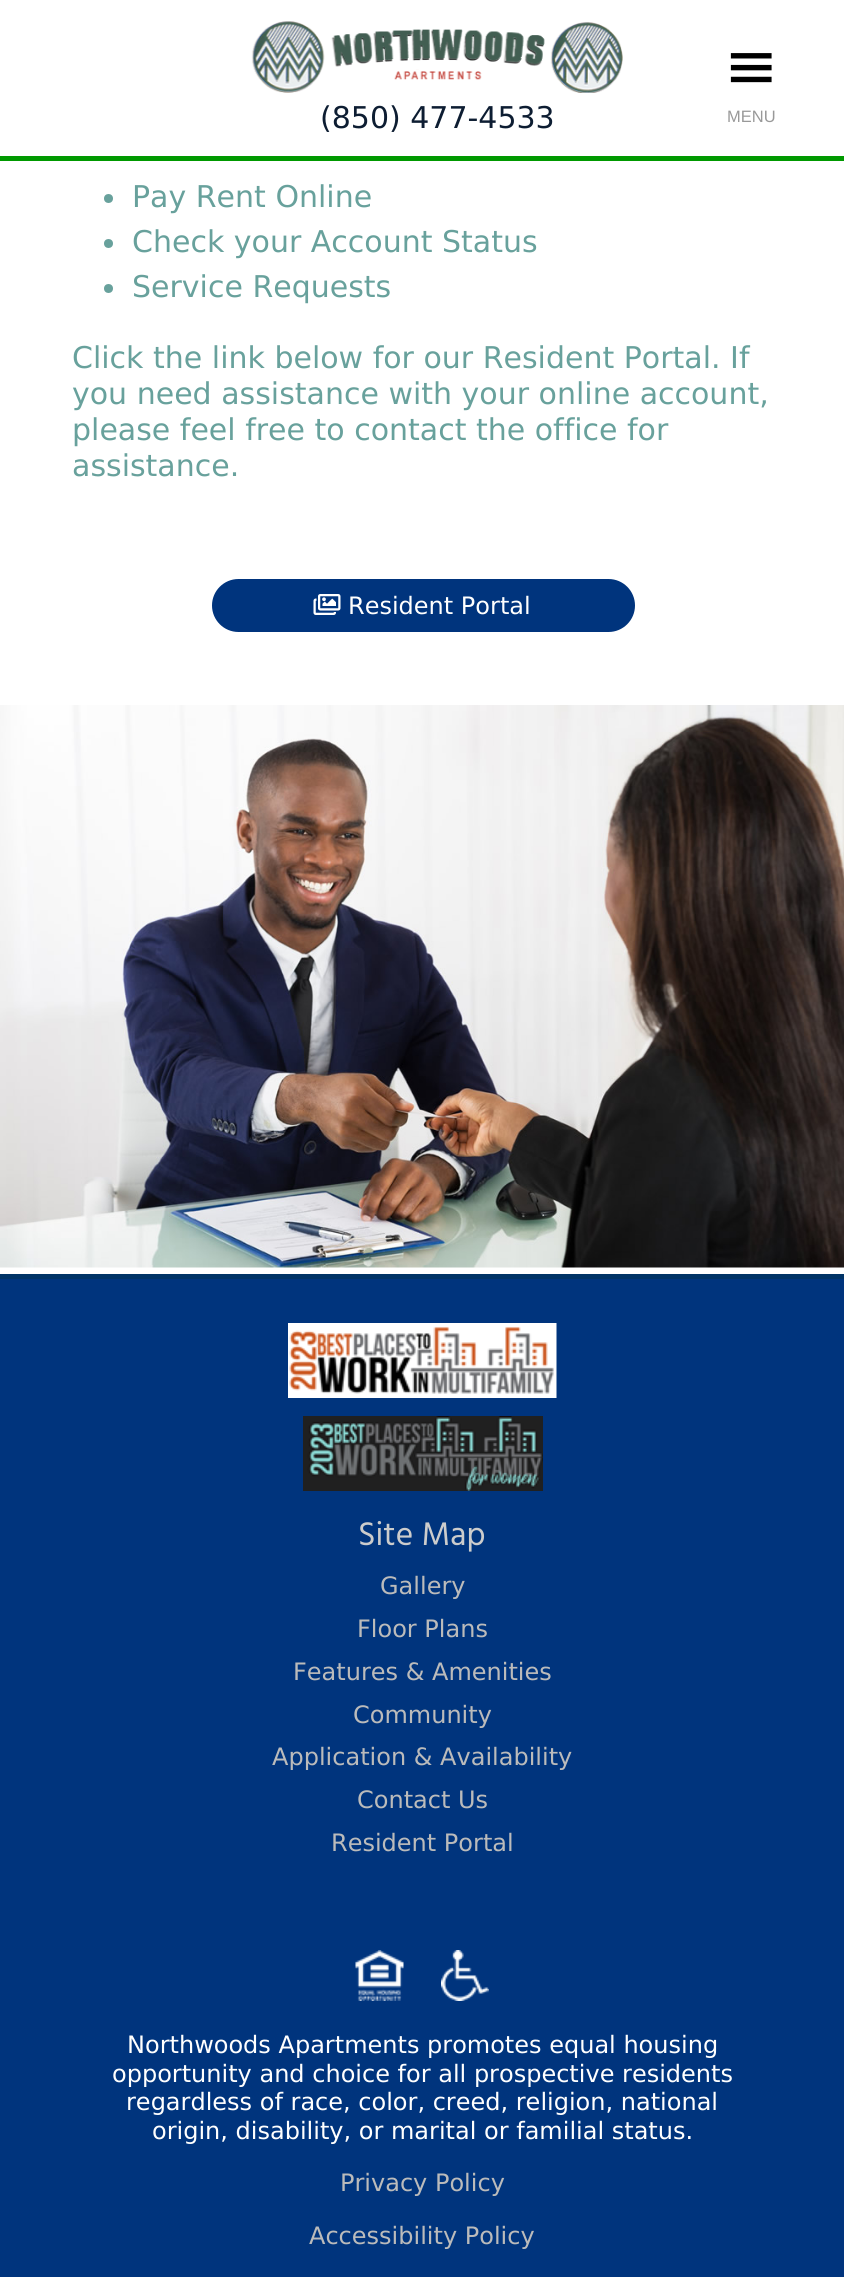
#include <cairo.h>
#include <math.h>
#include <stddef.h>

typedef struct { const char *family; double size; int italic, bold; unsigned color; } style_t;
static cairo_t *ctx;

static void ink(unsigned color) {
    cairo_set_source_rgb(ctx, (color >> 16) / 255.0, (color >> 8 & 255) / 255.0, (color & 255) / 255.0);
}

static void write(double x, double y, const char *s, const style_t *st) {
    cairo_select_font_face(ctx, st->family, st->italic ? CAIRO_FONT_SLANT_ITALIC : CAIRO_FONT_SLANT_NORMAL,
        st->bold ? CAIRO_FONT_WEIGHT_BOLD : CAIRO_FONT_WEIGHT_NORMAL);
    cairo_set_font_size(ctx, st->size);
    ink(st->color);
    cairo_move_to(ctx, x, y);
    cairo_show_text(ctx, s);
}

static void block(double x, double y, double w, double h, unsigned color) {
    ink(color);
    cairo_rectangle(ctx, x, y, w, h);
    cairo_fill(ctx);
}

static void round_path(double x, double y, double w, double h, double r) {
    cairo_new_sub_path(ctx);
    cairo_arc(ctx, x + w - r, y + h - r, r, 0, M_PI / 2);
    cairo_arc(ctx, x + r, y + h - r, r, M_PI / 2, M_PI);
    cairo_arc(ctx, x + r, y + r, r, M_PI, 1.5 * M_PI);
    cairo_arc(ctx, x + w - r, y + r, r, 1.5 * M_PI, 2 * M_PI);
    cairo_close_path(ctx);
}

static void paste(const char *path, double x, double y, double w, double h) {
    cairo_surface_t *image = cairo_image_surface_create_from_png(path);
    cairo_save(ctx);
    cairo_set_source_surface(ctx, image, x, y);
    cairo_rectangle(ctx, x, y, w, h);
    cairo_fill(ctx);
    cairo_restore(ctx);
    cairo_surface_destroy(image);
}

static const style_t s1 = {"DejaVu Sans", 30, 0, 0, 0x0d1d32};
static const style_t s2 = {"DejaVu Sans", 65, 0, 0, 0x000000};
static const style_t s3 = {"Liberation Sans", 16.5, 0, 0, 0x999999};
static const style_t s4 = {"DejaVu Sans", 30, 0, 0, 0x68a19c};
static const style_t s5 = {"DejaVu Sans", 24, 0, 0, 0xffffff};
static const style_t s6 = {"Hind", 33.5, 0, 0, 0xcccccc};
static const style_t s7 = {"DejaVu Sans", 24, 0, 0, 0xbbbbbb};

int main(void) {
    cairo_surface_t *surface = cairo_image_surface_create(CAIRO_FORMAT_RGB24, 844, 2277);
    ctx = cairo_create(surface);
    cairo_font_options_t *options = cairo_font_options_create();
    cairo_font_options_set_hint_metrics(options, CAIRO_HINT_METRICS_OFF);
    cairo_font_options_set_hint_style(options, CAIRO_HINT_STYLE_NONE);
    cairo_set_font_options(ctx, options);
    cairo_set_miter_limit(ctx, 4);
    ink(0xffffff);
    cairo_paint(ctx);
    block(0, 156, 844, 5, 0x009900);
    paste("pic1.png", 251, 21, 372, 72);
    write(320, 128, "(850) 477-4533", &s1);
    write(724, 88, "≡", &s2);
    write(727, 122, "MENU", &s3);
    ink(0x68a19c);
    cairo_new_path(ctx);
    cairo_arc(ctx, 108.5, 198.5, 4.5, 0, 2 * M_PI);
    cairo_fill(ctx);
    write(132, 207, "Pay Rent Online", &s4);
    cairo_new_path(ctx);
    cairo_arc(ctx, 108.5, 243.5, 4.5, 0, 2 * M_PI);
    cairo_fill(ctx);
    write(132, 252, "Check your Account Status", &s4);
    cairo_new_path(ctx);
    cairo_arc(ctx, 108.5, 288.5, 4.5, 0, 2 * M_PI);
    cairo_fill(ctx);
    write(132, 297, "Service Requests", &s4);
    write(72, 368, "Click the link below for our Resident Portal. If", &s4);
    write(72, 404, "you need assistance with your online account,", &s4);
    write(72, 440, "please feel free to contact the office for", &s4);
    write(72, 476, "assistance.", &s4);
    ink(0x00347d);
    round_path(212, 579, 423, 53, 26.5);
    cairo_fill(ctx);
    paste("pic2.png", 313, 594, 28, 21);
    write(348, 614, "Resident Portal", &s5);
    paste("pic3.png", 0, 705, 844, 563);
    block(0, 1279, 844, 998, 0x00347d);
    block(0, 1274, 844, 5, 0x003366);
    paste("pic4.png", 288, 1323, 269, 75);
    paste("pic5.png", 303, 1416, 240, 75);
    write(358, 1545, "Site Map", &s6);
    write(380, 1594, "Gallery", &s7);
    write(357, 1637, "Floor Plans", &s7);
    write(293, 1680, "Features & Amenities", &s7);
    write(353, 1723, "Community", &s7);
    write(272, 1765, "Application & Availability", &s7);
    write(357, 1808, "Contact Us", &s7);
    write(331, 1851, "Resident Portal", &s7);
    paste("pic6.png", 355, 1950, 49, 51);
    paste("pic7.png", 441, 1950, 48, 51);
    write(127, 2053, "Northwoods Apartments promotes equal housing", &s5);
    write(112, 2082, "opportunity and choice for all prospective residents", &s5);
    write(126, 2110, "regardless of race, color, creed, religion, national", &s5);
    write(152, 2139, "origin, disability, or marital or familial status.", &s5);
    write(340, 2191, "Privacy Policy", &s7);
    write(309, 2244, "Accessibility Policy", &s7);
    cairo_surface_write_to_png(surface, "screenshot.png");
    cairo_font_options_destroy(options);
    cairo_destroy(ctx);
    cairo_surface_destroy(surface);
    return 0;
}
